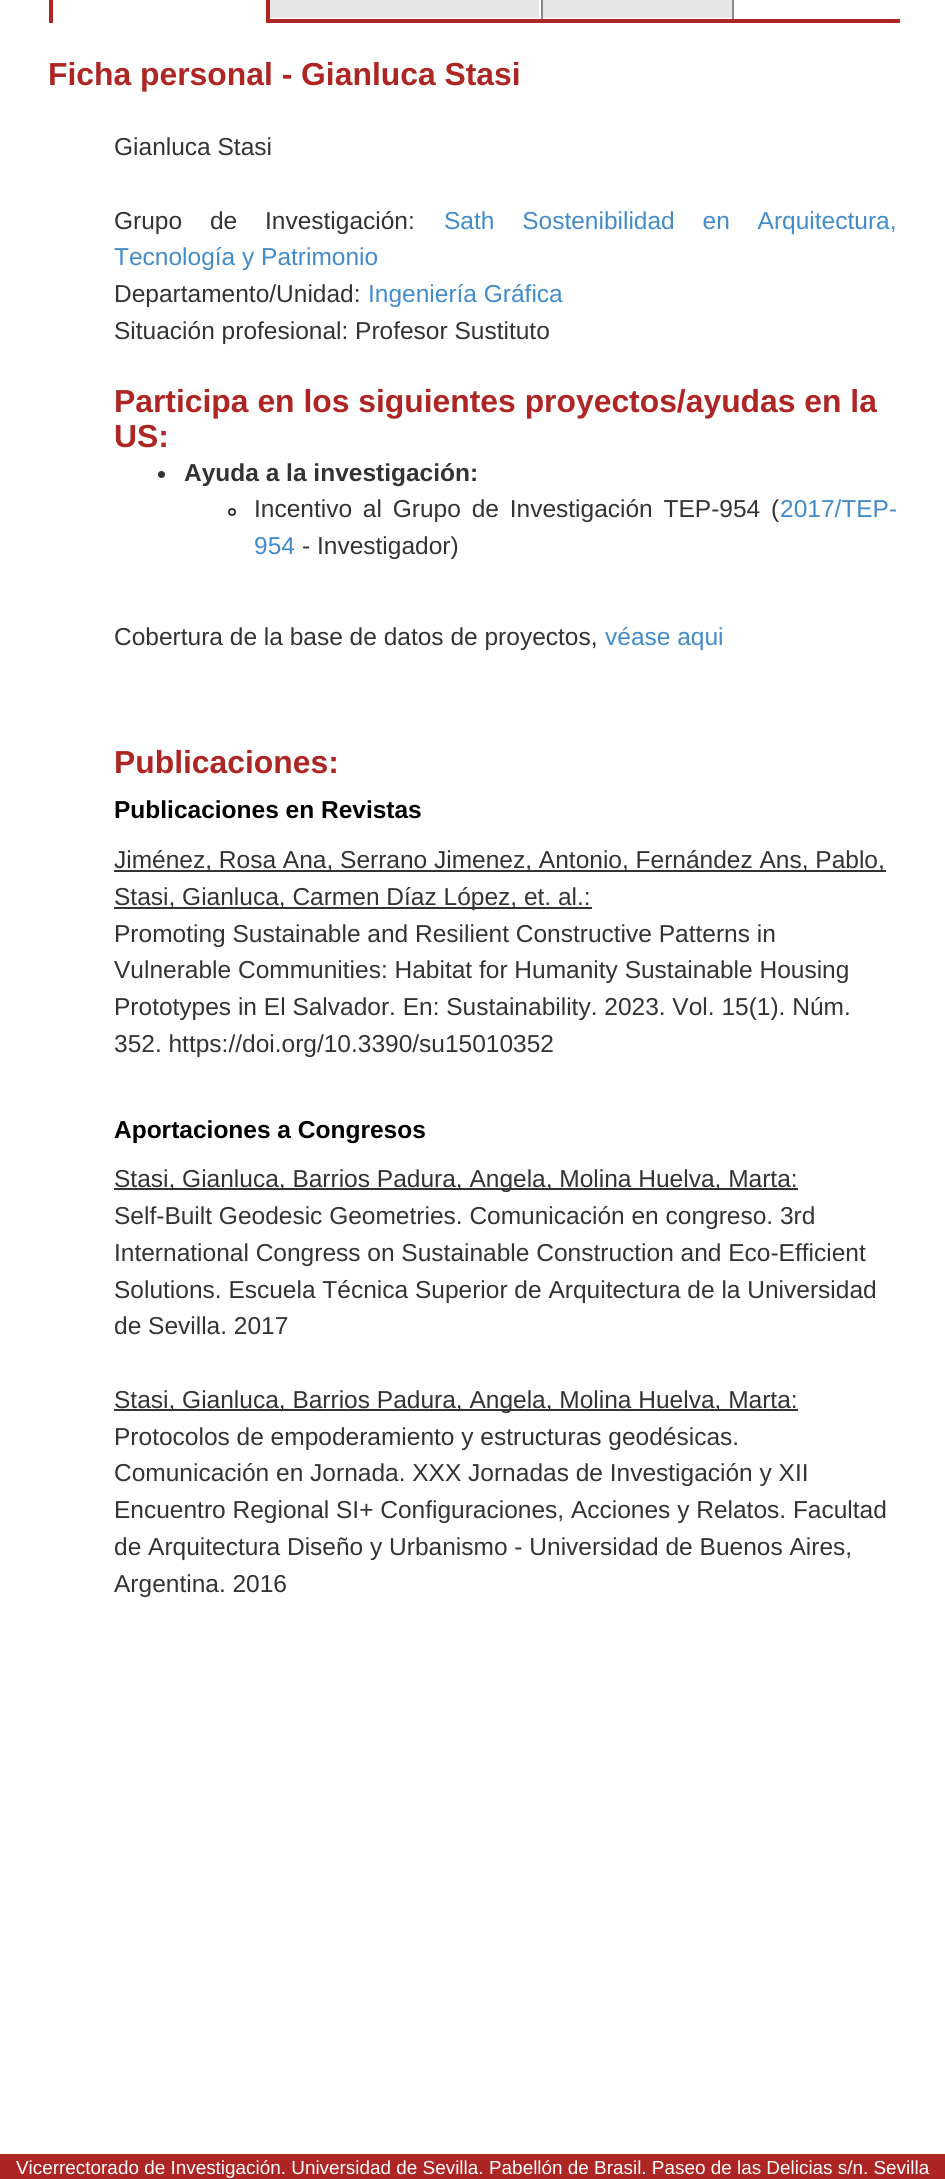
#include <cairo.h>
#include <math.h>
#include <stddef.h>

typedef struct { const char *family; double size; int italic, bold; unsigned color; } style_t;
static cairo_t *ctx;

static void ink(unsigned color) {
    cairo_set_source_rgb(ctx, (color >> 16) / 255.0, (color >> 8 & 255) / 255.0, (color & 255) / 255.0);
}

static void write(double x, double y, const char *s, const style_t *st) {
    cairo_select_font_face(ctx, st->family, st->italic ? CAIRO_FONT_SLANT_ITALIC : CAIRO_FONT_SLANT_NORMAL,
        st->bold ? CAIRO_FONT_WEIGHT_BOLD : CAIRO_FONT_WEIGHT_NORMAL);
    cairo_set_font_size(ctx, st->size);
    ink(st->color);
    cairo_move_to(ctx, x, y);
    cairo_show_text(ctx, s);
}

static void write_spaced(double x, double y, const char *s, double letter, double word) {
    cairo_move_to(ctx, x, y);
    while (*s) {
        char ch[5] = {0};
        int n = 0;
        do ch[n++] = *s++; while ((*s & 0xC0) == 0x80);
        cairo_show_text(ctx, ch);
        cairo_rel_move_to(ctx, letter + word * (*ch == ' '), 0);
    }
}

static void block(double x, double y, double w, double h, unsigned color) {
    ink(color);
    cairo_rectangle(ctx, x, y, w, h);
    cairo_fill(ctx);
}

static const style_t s1 = {"Liberation Sans", 31.85, 0, 1, 0xad2624};
static const style_t s2 = {"Liberation Sans", 24.5, 0, 0, 0x333333};
static const style_t s3 = {"Liberation Sans", 24.5, 0, 0, 0x428bca};
static const style_t s4 = {"Liberation Sans", 24.5, 0, 1, 0x333333};
static const style_t s5 = {"Liberation Sans", 24.5, 0, 1, 0x000000};
static const style_t s6 = {"Liberation Sans", 18.9, 0, 0, 0xffffff};

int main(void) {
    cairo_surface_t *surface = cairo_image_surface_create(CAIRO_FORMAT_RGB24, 945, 2179);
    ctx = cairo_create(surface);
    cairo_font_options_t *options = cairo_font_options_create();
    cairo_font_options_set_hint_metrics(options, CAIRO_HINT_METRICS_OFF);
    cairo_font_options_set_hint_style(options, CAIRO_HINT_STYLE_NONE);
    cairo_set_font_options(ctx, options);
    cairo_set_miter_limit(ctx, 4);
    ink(0xffffff);
    cairo_paint(ctx);
    block(732, 0, 2, 21, 0x8d8a8a);
    block(541, 0, 2, 21, 0x8d8a8a);
    block(266, 19, 634, 4, 0xad2624);
    block(266, 0, 4, 23, 0xad2624);
    block(49, 0, 4, 23, 0xad2624);
    block(270, 0, 269, 18, 0xe6e6e6);
    block(543, 0, 189, 18, 0xe6e6e6);
    write(48, 85, "Ficha personal - Gianluca Stasi", &s1);
    write(114, 155, "Gianluca Stasi", &s2);
    write_spaced(114, 229, "Grupo de Investigación:", 0, 21);
    ink(0x428bca);
    write_spaced(444, 229, "Sath Sostenibilidad en Arquitectura,", 0, 21);
    write(114, 265, "Tecnología y Patrimonio", &s3);
    write(114, 302, "Departamento/Unidad:", &s2);
    write(368, 302, "Ingeniería Gráfica", &s3);
    write(114, 339, "Situación profesional: Profesor Sustituto", &s2);
    write(114, 412, "Participa en los siguientes proyectos/ayudas en la", &s1);
    write(114, 447, "US:", &s1);
    ink(0x333333);
    cairo_new_path(ctx);
    cairo_arc(ctx, 161.5, 474.5, 3.5, 0, 2 * M_PI);
    cairo_fill(ctx);
    write(184, 481, "Ayuda a la investigación:", &s4);
    cairo_new_path(ctx);
    cairo_arc(ctx, 232, 512, 3, 0, 2 * M_PI);
    cairo_stroke(ctx);
    cairo_select_font_face(ctx, "Liberation Sans", CAIRO_FONT_SLANT_NORMAL, CAIRO_FONT_WEIGHT_NORMAL);
    write_spaced(254, 517, "Incentivo al Grupo de Investigación TEP-954 (", 0, 4);
    write(780, 517, "2017/TEP-", &s3);
    write(254, 554, "954", &s3);
    write(302, 554, "- Investigador)", &s2);
    write(114, 645, "Cobertura de la base de datos de proyectos,", &s2);
    write(605, 645, "véase aqui", &s3);
    write(114, 773, "Publicaciones:", &s1);
    write(114, 818, "Publicaciones en Revistas", &s5);
    block(114, 870, 772, 2, 0x333333);
    write(114, 868, "Jiménez, Rosa Ana, Serrano Jimenez, Antonio, Fernández Ans, Pablo,", &s2);
    block(114, 907, 478, 2, 0x333333);
    write(114, 905, "Stasi, Gianluca, Carmen Díaz López, et. al.:", &s2);
    write(114, 942, "Promoting Sustainable and Resilient Constructive Patterns in", &s2);
    write(114, 978, "Vulnerable Communities: Habitat for Humanity Sustainable Housing", &s2);
    write(114, 1015, "Prototypes in El Salvador. En: Sustainability. 2023. Vol. 15(1). Núm.", &s2);
    write(114, 1052, "352. https://doi.org/10.3390/su15010352", &s2);
    write(114, 1138, "Aportaciones a Congresos", &s5);
    block(114, 1188, 684, 2, 0x333333);
    write(114, 1187, "Stasi, Gianluca, Barrios Padura, Angela, Molina Huelva, Marta:", &s2);
    write(114, 1224, "Self-Built Geodesic Geometries. Comunicación en congreso. 3rd", &s2);
    write(114, 1261, "International Congress on Sustainable Construction and Eco-Efficient", &s2);
    write(114, 1298, "Solutions. Escuela Técnica Superior de Arquitectura de la Universidad", &s2);
    write(114, 1334, "de Sevilla. 2017", &s2);
    block(114, 1409, 684, 2, 0x333333);
    write(114, 1408, "Stasi, Gianluca, Barrios Padura, Angela, Molina Huelva, Marta:", &s2);
    write(114, 1445, "Protocolos de empoderamiento y estructuras geodésicas.", &s2);
    write(114, 1481, "Comunicación en Jornada. XXX Jornadas de Investigación y XII", &s2);
    write(114, 1518, "Encuentro Regional SI+ Configuraciones, Acciones y Relatos. Facultad", &s2);
    write(114, 1555, "de Arquitectura Diseño y Urbanismo - Universidad de Buenos Aires,", &s2);
    write(114, 1592, "Argentina. 2016", &s2);
    block(0, 2154, 945, 25, 0xad2624);
    write(16, 2174, "Vicerrectorado de Investigación. Universidad de Sevilla.", &s6);
    write(489, 2174, "Pabellón de Brasil. Paseo de las Delicias s/n. Sevilla", &s6);
    cairo_surface_write_to_png(surface, "screenshot.png");
    cairo_font_options_destroy(options);
    cairo_destroy(ctx);
    cairo_surface_destroy(surface);
    return 0;
}
